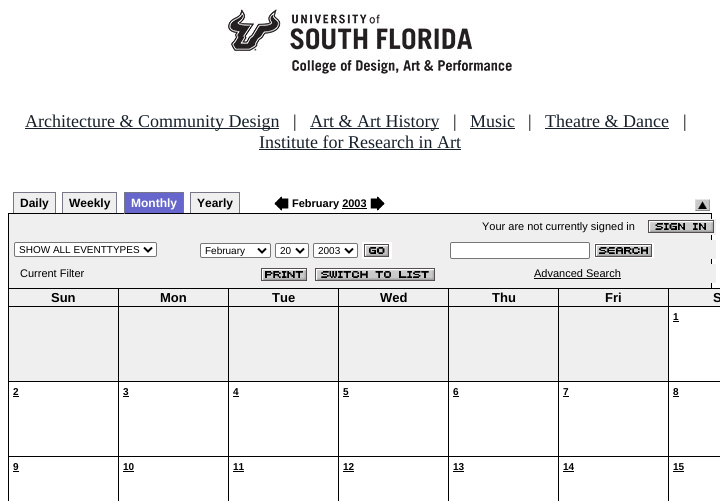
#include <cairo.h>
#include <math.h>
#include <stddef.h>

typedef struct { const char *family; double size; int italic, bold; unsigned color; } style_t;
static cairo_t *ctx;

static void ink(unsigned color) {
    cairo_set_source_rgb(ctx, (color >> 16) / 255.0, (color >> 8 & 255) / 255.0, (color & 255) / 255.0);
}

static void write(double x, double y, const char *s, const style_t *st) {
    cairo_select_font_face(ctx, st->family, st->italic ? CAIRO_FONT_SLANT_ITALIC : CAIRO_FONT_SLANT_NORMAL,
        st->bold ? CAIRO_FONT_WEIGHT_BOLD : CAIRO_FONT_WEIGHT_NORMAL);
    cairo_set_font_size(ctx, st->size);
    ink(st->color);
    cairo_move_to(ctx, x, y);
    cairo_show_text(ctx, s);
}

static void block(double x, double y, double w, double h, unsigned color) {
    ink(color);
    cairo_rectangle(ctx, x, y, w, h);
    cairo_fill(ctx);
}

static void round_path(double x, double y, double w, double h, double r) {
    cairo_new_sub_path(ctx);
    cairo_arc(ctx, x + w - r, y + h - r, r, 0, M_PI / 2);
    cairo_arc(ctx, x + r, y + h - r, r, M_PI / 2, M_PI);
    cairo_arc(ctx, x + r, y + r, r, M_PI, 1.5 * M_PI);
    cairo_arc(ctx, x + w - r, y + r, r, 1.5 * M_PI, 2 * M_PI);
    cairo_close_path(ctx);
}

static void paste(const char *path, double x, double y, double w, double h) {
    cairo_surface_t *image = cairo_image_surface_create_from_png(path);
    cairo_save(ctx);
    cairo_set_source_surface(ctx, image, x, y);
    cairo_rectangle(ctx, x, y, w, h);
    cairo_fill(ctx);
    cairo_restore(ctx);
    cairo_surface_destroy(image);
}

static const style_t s1 = {"Liberation Serif", 18, 0, 0, 0x17202a};
static const style_t s2 = {"Liberation Serif", 18, 0, 0, 0x000000};
static const style_t s3 = {"Liberation Sans", 12, 0, 1, 0x000000};
static const style_t s4 = {"Liberation Sans", 12, 0, 1, 0xffffff};
static const style_t s5 = {"Liberation Sans", 11, 0, 1, 0x000000};
static const style_t s6 = {"Liberation Sans", 11, 0, 0, 0x000000};
static const style_t s7 = {"Liberation Sans", 10, 0, 0, 0x000000};
static const style_t s8 = {"Liberation Sans", 13, 0, 1, 0x000000};
static const style_t s9 = {"Liberation Sans", 10, 0, 1, 0x000000};

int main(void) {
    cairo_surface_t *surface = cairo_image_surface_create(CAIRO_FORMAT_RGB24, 720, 501);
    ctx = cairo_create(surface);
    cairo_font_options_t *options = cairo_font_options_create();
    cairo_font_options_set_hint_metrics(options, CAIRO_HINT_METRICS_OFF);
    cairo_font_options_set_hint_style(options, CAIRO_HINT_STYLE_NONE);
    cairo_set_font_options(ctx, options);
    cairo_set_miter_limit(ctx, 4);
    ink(0xffffff);
    cairo_paint(ctx);
    paste("pic1.png", 224, 8, 288, 67);
    block(25, 128, 254, 1, 0x17202a);
    write(25, 127, "Architecture & Community Design", &s1);
    write(293, 127, "|", &s2);
    block(310, 128, 129, 1, 0x17202a);
    write(310, 127, "Art & Art History", &s1);
    write(453, 127, "|", &s2);
    write(470, 127, "Music", &s1);
    block(470, 128, 45, 1, 0x17202a);
    write(528, 127, "|", &s2);
    write(545, 127, "Theatre & Dance", &s1);
    block(545, 128, 124, 1, 0x17202a);
    write(683, 127, "|", &s2);
    write(259, 148, "Institute for Research in Art", &s1);
    block(259, 149, 202, 1, 0x17202a);
    block(14, 193, 41, 20, 0xefefef);
    write(20, 207, "Daily", &s3);
    block(13, 192, 43, 1, 0x777788);
    block(55, 192, 1, 21, 0x777788);
    block(13, 192, 1, 21, 0x777788);
    block(63, 193, 53, 20, 0xefefef);
    write(69, 207, "Weekly", &s3);
    block(62, 192, 55, 1, 0x777788);
    block(116, 192, 1, 21, 0x777788);
    block(62, 192, 1, 21, 0x777788);
    block(125, 193, 58, 20, 0x6666cc);
    write(131, 207, "Monthly", &s4);
    block(124, 192, 60, 1, 0x777788);
    block(8, 213, 704, 1, 0x000000);
    block(183, 192, 1, 22, 0x777788);
    block(183, 213, 1, 1, 0x000000);
    block(124, 192, 1, 22, 0x777788);
    block(191, 193, 48, 20, 0xefefef);
    write(197, 207, "Yearly", &s3);
    block(190, 192, 50, 1, 0x777788);
    block(239, 192, 1, 21, 0x777788);
    block(190, 192, 1, 21, 0x777788);
    paste("pic2.png", 274, 196, 15, 15);
    write(292, 207, "February 2003", &s5);
    block(342, 208, 25, 1, 0x000000);
    paste("pic3.png", 370, 196, 15, 15);
    paste("pic4.png", 695, 199, 15, 12);
    block(9, 214, 702, 74, 0xefefef);
    block(711, 213, 1, 75, 0x000000);
    block(8, 213, 1, 75, 0x000000);
    block(711, 219, 5, 16, 0xefefef);
    write(482, 230, "Your are not currently signed in", &s6);
    paste("pic5.png", 648, 220, 66, 13);
    block(711, 240, 5, 19, 0xefefef);
    ink(0xffffff);
    round_path(14.5, 242.5, 142, 14, 1.5);
    cairo_fill_preserve(ctx);
    ink(0x767676);
    cairo_set_line_width(ctx, 1);
    cairo_stroke(ctx);
    cairo_new_path(ctx);
    cairo_move_to(ctx, 144, 247.5);
    cairo_line_to(ctx, 148, 251.5);
    cairo_line_to(ctx, 152, 247.5);
    ink(0x000000);
    cairo_set_line_width(ctx, 2);
    cairo_stroke(ctx);
    write(19, 253, "SHOW ALL EVENTTYPES", &s7);
    ink(0xffffff);
    round_path(200.5, 243.5, 70, 14, 1.5);
    cairo_fill_preserve(ctx);
    ink(0x767676);
    cairo_set_line_width(ctx, 1);
    cairo_stroke(ctx);
    cairo_new_path(ctx);
    cairo_move_to(ctx, 258, 248.5);
    cairo_line_to(ctx, 262, 252.5);
    cairo_line_to(ctx, 266, 248.5);
    ink(0x000000);
    cairo_set_line_width(ctx, 2);
    cairo_stroke(ctx);
    write(205, 254, "February", &s7);
    ink(0xffffff);
    round_path(275.5, 243.5, 33, 14, 1.5);
    cairo_fill_preserve(ctx);
    ink(0x767676);
    cairo_set_line_width(ctx, 1);
    cairo_stroke(ctx);
    cairo_new_path(ctx);
    cairo_move_to(ctx, 296, 248.5);
    cairo_line_to(ctx, 300, 252.5);
    cairo_line_to(ctx, 304, 248.5);
    ink(0x000000);
    cairo_set_line_width(ctx, 2);
    cairo_stroke(ctx);
    write(280, 254, "20", &s7);
    ink(0xffffff);
    round_path(313.5, 243.5, 44, 14, 1.5);
    cairo_fill_preserve(ctx);
    ink(0x767676);
    cairo_set_line_width(ctx, 1);
    cairo_stroke(ctx);
    cairo_new_path(ctx);
    cairo_move_to(ctx, 345, 248.5);
    cairo_line_to(ctx, 349, 252.5);
    cairo_line_to(ctx, 353, 248.5);
    ink(0x000000);
    cairo_set_line_width(ctx, 2);
    cairo_stroke(ctx);
    write(318, 254, "2003", &s7);
    block(362, 242, 30, 17, 0xffffff);
    paste("pic6.png", 364, 244, 25, 13);
    round_path(450.5, 242.5, 139, 16, 1.5);
    cairo_fill_preserve(ctx);
    ink(0x767676);
    cairo_set_line_width(ctx, 1);
    cairo_stroke(ctx);
    block(594, 243, 60, 15, 0xffffff);
    paste("pic7.png", 595, 244, 57, 13);
    block(711, 264, 5, 19, 0xefefef);
    write(20, 277, "Current Filter", &s6);
    paste("pic8.png", 261, 268, 46, 13);
    paste("pic9.png", 315, 268, 120, 13);
    write(534, 277, "Advanced Search", &s6);
    block(534, 278, 87, 1, 0x000000);
    block(8, 288, 712, 1, 0x000000);
    block(8, 288, 1, 213, 0x000000);
    block(9, 289, 711, 17, 0xefefef);
    block(9, 306, 711, 1, 0x000000);
    block(118, 289, 1, 212, 0x000000);
    write(51, 302, "Sun", &s8);
    block(228, 289, 1, 212, 0x000000);
    write(160, 302, "Mon", &s8);
    block(338, 289, 1, 212, 0x000000);
    write(272, 302, "Tue", &s8);
    block(448, 289, 1, 212, 0x000000);
    write(380, 302, "Wed", &s8);
    block(558, 289, 1, 212, 0x000000);
    write(492, 302, "Thu", &s8);
    block(668, 289, 1, 212, 0x000000);
    write(605, 302, "Fri", &s8);
    write(713, 302, "S", &s8);
    block(9, 307, 109, 74, 0xefefef);
    block(9, 381, 711, 1, 0x000000);
    block(119, 307, 109, 74, 0xefefef);
    block(229, 307, 109, 74, 0xefefef);
    block(339, 307, 109, 74, 0xefefef);
    block(449, 307, 109, 74, 0xefefef);
    block(559, 307, 109, 74, 0xefefef);
    write(673, 320, "1", &s9);
    block(673, 321, 6, 1, 0x000000);
    block(9, 456, 711, 1, 0x000000);
    write(13, 395, "2", &s9);
    block(13, 396, 6, 1, 0x000000);
    write(123, 395, "3", &s9);
    block(123, 396, 6, 1, 0x000000);
    write(233, 395, "4", &s9);
    block(233, 396, 6, 1, 0x000000);
    write(343, 395, "5", &s9);
    block(343, 396, 6, 1, 0x000000);
    write(453, 395, "6", &s9);
    block(453, 396, 6, 1, 0x000000);
    write(563, 395, "7", &s9);
    block(563, 396, 6, 1, 0x000000);
    write(673, 395, "8", &s9);
    block(673, 396, 6, 1, 0x000000);
    write(13, 470, "9", &s9);
    block(13, 471, 6, 1, 0x000000);
    write(123, 470, "10", &s9);
    block(123, 471, 11, 1, 0x000000);
    write(233, 470, "11", &s9);
    block(233, 471, 11, 1, 0x000000);
    write(343, 470, "12", &s9);
    block(343, 471, 11, 1, 0x000000);
    write(453, 470, "13", &s9);
    block(453, 471, 11, 1, 0x000000);
    write(563, 470, "14", &s9);
    block(563, 471, 11, 1, 0x000000);
    write(673, 470, "15", &s9);
    block(673, 471, 11, 1, 0x000000);
    cairo_surface_write_to_png(surface, "screenshot.png");
    cairo_font_options_destroy(options);
    cairo_destroy(ctx);
    cairo_surface_destroy(surface);
    return 0;
}
